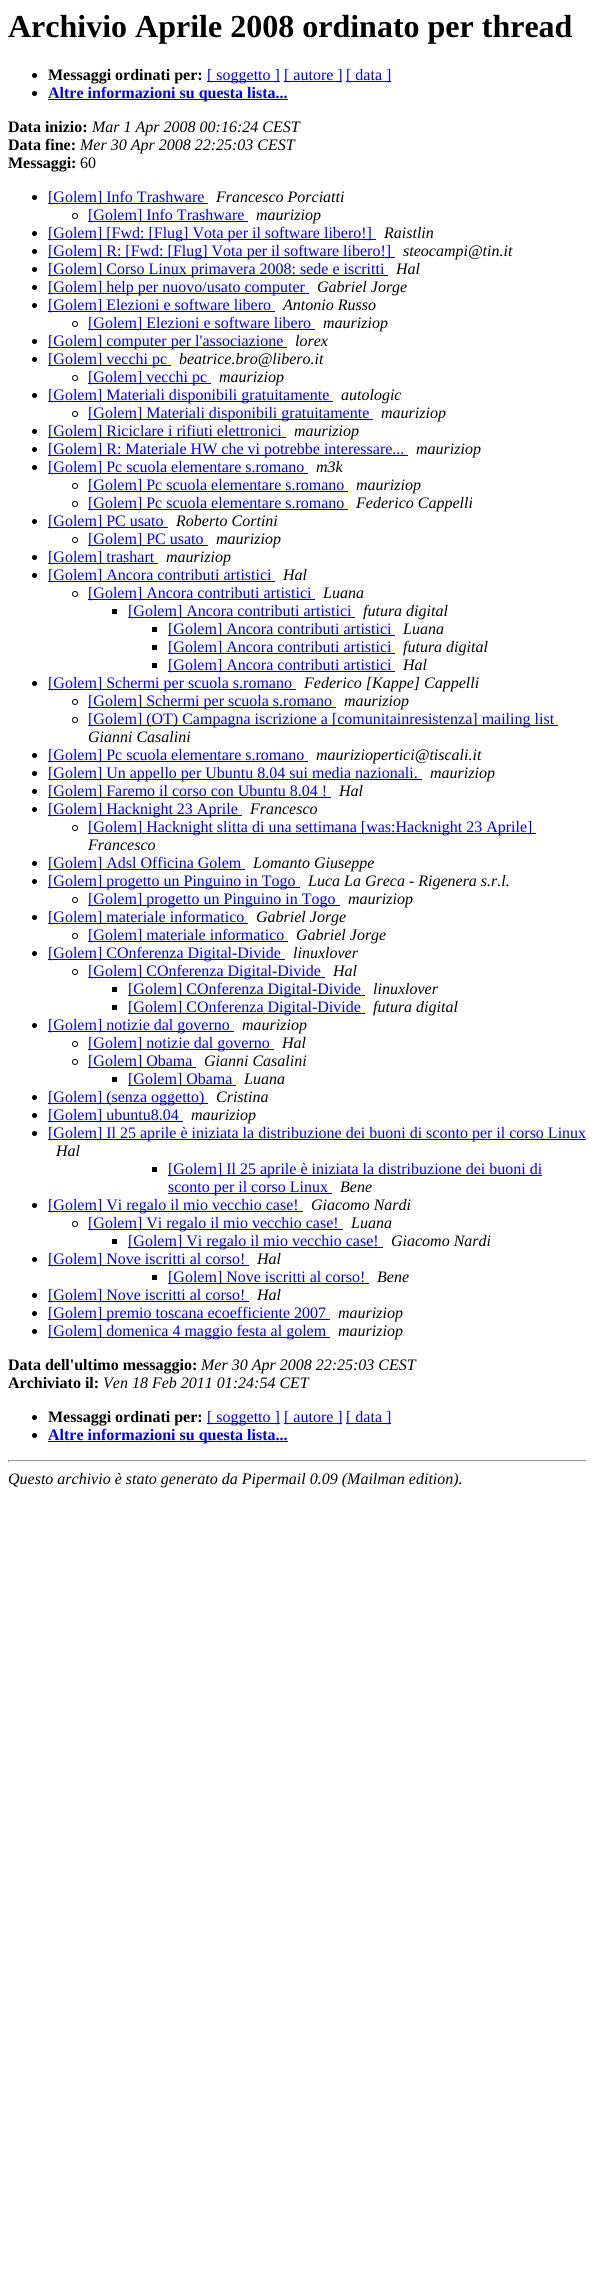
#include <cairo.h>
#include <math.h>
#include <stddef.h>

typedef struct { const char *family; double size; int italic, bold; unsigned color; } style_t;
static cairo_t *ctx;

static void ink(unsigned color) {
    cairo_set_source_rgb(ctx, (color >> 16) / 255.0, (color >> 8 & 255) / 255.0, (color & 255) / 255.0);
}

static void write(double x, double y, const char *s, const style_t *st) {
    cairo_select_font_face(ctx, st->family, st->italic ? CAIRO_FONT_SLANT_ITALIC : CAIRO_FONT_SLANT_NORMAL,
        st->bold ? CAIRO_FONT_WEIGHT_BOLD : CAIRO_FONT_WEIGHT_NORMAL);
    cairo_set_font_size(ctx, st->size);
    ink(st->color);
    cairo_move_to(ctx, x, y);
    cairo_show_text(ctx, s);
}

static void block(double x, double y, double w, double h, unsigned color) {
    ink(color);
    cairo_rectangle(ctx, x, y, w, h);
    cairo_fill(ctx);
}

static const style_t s1 = {"Liberation Serif", 32, 0, 1, 0x000000};
static const style_t s2 = {"Liberation Serif", 16, 0, 1, 0x000000};
static const style_t s3 = {"Liberation Serif", 16, 0, 0, 0x0000ee};
static const style_t s4 = {"Liberation Serif", 16, 0, 1, 0x0000ee};
static const style_t s5 = {"Liberation Serif", 16, 1, 0, 0x000000};
static const style_t s6 = {"Liberation Serif", 16, 0, 0, 0x000000};

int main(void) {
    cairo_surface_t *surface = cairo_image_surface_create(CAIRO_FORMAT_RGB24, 595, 2281);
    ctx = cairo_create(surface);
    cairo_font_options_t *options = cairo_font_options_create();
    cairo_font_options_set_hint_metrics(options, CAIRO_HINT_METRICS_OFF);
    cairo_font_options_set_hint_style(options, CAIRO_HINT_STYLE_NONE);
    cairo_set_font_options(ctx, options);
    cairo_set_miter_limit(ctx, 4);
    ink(0xffffff);
    cairo_paint(ctx);
    write(8, 37, "Archivio Aprile 2008 ordinato per thread", &s1);
    cairo_new_path(ctx);
    cairo_arc(ctx, 34.5, 75.5, 2.5, 0, 2 * M_PI);
    cairo_fill(ctx);
    write(48, 80, "Messaggi ordinati per:", &s2);
    block(207, 81, 73, 1, 0x0000ee);
    write(207, 80, "[ soggetto ]", &s3);
    block(284, 81, 58, 1, 0x0000ee);
    write(284, 80, "[ autore ]", &s3);
    block(346, 81, 45, 1, 0x0000ee);
    write(346, 80, "[ data ]", &s3);
    ink(0x000000);
    cairo_new_path(ctx);
    cairo_arc(ctx, 34.5, 93.5, 2.5, 0, 2 * M_PI);
    cairo_fill(ctx);
    block(48, 99, 240, 1, 0x0000ee);
    write(48, 98, "Altre informazioni su questa lista...", &s4);
    write(8, 132, "Data inizio:", &s2);
    write(92, 132, "Mar 1 Apr 2008 00:16:24 CEST", &s5);
    write(8, 150, "Data fine:", &s2);
    write(80, 150, "Mer 30 Apr 2008 22:25:03 CEST", &s5);
    write(8, 168, "Messaggi:", &s2);
    write(80, 168, "60", &s6);
    cairo_new_path(ctx);
    cairo_arc(ctx, 34.5, 197.5, 2.5, 0, 2 * M_PI);
    cairo_fill(ctx);
    block(48, 203, 160, 1, 0x0000ee);
    write(48, 202, "[Golem] Info Trashware", &s3);
    write(216, 202, "Francesco Porciatti", &s5);
    cairo_new_path(ctx);
    cairo_arc(ctx, 75, 216, 2.5, 0, 2 * M_PI);
    cairo_set_line_width(ctx, 1);
    cairo_stroke(ctx);
    block(88, 221, 160, 1, 0x0000ee);
    write(88, 220, "[Golem] Info Trashware", &s3);
    write(256, 220, "mauriziop", &s5);
    cairo_new_path(ctx);
    cairo_arc(ctx, 34.5, 233.5, 2.5, 0, 2 * M_PI);
    cairo_fill(ctx);
    block(48, 239, 328, 1, 0x0000ee);
    write(48, 238, "[Golem] [Fwd: [Flug] Vota per il software libero!]", &s3);
    write(384, 238, "Raistlin", &s5);
    cairo_new_path(ctx);
    cairo_arc(ctx, 34.5, 251.5, 2.5, 0, 2 * M_PI);
    cairo_fill(ctx);
    block(48, 257, 347, 1, 0x0000ee);
    write(48, 256, "[Golem] R: [Fwd: [Flug] Vota per il software libero!]", &s3);
    write(403, 256, "steocampi@tin.it", &s5);
    cairo_new_path(ctx);
    cairo_arc(ctx, 34.5, 269.5, 2.5, 0, 2 * M_PI);
    cairo_fill(ctx);
    block(48, 275, 340, 1, 0x0000ee);
    write(48, 274, "[Golem] Corso Linux primavera 2008: sede e iscritti", &s3);
    write(396, 274, "Hal", &s5);
    cairo_new_path(ctx);
    cairo_arc(ctx, 34.5, 287.5, 2.5, 0, 2 * M_PI);
    cairo_fill(ctx);
    block(48, 293, 261, 1, 0x0000ee);
    write(48, 292, "[Golem] help per nuovo/usato computer", &s3);
    write(317, 292, "Gabriel Jorge", &s5);
    cairo_new_path(ctx);
    cairo_arc(ctx, 34.5, 305.5, 2.5, 0, 2 * M_PI);
    cairo_fill(ctx);
    block(48, 311, 227, 1, 0x0000ee);
    write(48, 310, "[Golem] Elezioni e software libero", &s3);
    write(283, 310, "Antonio Russo", &s5);
    cairo_new_path(ctx);
    cairo_arc(ctx, 75, 324, 2.5, 0, 2 * M_PI);
    cairo_stroke(ctx);
    block(88, 329, 227, 1, 0x0000ee);
    write(88, 328, "[Golem] Elezioni e software libero", &s3);
    write(323, 328, "mauriziop", &s5);
    cairo_new_path(ctx);
    cairo_arc(ctx, 34.5, 341.5, 2.5, 0, 2 * M_PI);
    cairo_fill(ctx);
    block(48, 347, 239, 1, 0x0000ee);
    write(48, 346, "[Golem] computer per l'associazione", &s3);
    write(295, 346, "lorex", &s5);
    cairo_new_path(ctx);
    cairo_arc(ctx, 34.5, 359.5, 2.5, 0, 2 * M_PI);
    cairo_fill(ctx);
    block(48, 365, 123, 1, 0x0000ee);
    write(48, 364, "[Golem] vecchi pc", &s3);
    write(179, 364, "beatrice.bro@libero.it", &s5);
    cairo_new_path(ctx);
    cairo_arc(ctx, 75, 378, 2.5, 0, 2 * M_PI);
    cairo_stroke(ctx);
    block(88, 383, 123, 1, 0x0000ee);
    write(88, 382, "[Golem] vecchi pc", &s3);
    write(219, 382, "mauriziop", &s5);
    cairo_new_path(ctx);
    cairo_arc(ctx, 34.5, 395.5, 2.5, 0, 2 * M_PI);
    cairo_fill(ctx);
    block(48, 401, 285, 1, 0x0000ee);
    write(48, 400, "[Golem] Materiali disponibili gratuitamente", &s3);
    write(341, 400, "autologic", &s5);
    cairo_new_path(ctx);
    cairo_arc(ctx, 75, 414, 2.5, 0, 2 * M_PI);
    cairo_stroke(ctx);
    block(88, 419, 285, 1, 0x0000ee);
    write(88, 418, "[Golem] Materiali disponibili gratuitamente", &s3);
    write(381, 418, "mauriziop", &s5);
    cairo_new_path(ctx);
    cairo_arc(ctx, 34.5, 431.5, 2.5, 0, 2 * M_PI);
    cairo_fill(ctx);
    block(48, 437, 238, 1, 0x0000ee);
    write(48, 436, "[Golem] Riciclare i rifiuti elettronici", &s3);
    write(294, 436, "mauriziop", &s5);
    cairo_new_path(ctx);
    cairo_arc(ctx, 34.5, 449.5, 2.5, 0, 2 * M_PI);
    cairo_fill(ctx);
    block(48, 455, 360, 1, 0x0000ee);
    write(48, 454, "[Golem] R: Materiale HW che vi potrebbe interessare...", &s3);
    write(416, 454, "mauriziop", &s5);
    cairo_new_path(ctx);
    cairo_arc(ctx, 34.5, 467.5, 2.5, 0, 2 * M_PI);
    cairo_fill(ctx);
    block(48, 473, 260, 1, 0x0000ee);
    write(48, 472, "[Golem] Pc scuola elementare s.romano", &s3);
    write(316, 472, "m3k", &s5);
    cairo_new_path(ctx);
    cairo_arc(ctx, 75, 486, 2.5, 0, 2 * M_PI);
    cairo_stroke(ctx);
    block(88, 491, 260, 1, 0x0000ee);
    write(88, 490, "[Golem] Pc scuola elementare s.romano", &s3);
    write(356, 490, "mauriziop", &s5);
    cairo_new_path(ctx);
    cairo_arc(ctx, 75, 504, 2.5, 0, 2 * M_PI);
    cairo_stroke(ctx);
    block(88, 509, 260, 1, 0x0000ee);
    write(88, 508, "[Golem] Pc scuola elementare s.romano", &s3);
    write(356, 508, "Federico Cappelli", &s5);
    cairo_new_path(ctx);
    cairo_arc(ctx, 34.5, 521.5, 2.5, 0, 2 * M_PI);
    cairo_fill(ctx);
    block(48, 527, 120, 1, 0x0000ee);
    write(48, 526, "[Golem] PC usato", &s3);
    write(176, 526, "Roberto Cortini", &s5);
    cairo_new_path(ctx);
    cairo_arc(ctx, 75, 540, 2.5, 0, 2 * M_PI);
    cairo_stroke(ctx);
    block(88, 545, 120, 1, 0x0000ee);
    write(88, 544, "[Golem] PC usato", &s3);
    write(216, 544, "mauriziop", &s5);
    cairo_new_path(ctx);
    cairo_arc(ctx, 34.5, 557.5, 2.5, 0, 2 * M_PI);
    cairo_fill(ctx);
    block(48, 563, 110, 1, 0x0000ee);
    write(48, 562, "[Golem] trashart", &s3);
    write(166, 562, "mauriziop", &s5);
    cairo_new_path(ctx);
    cairo_arc(ctx, 34.5, 575.5, 2.5, 0, 2 * M_PI);
    cairo_fill(ctx);
    block(48, 581, 227, 1, 0x0000ee);
    write(48, 580, "[Golem] Ancora contributi artistici", &s3);
    write(283, 580, "Hal", &s5);
    cairo_new_path(ctx);
    cairo_arc(ctx, 75, 594, 2.5, 0, 2 * M_PI);
    cairo_stroke(ctx);
    block(88, 599, 227, 1, 0x0000ee);
    write(88, 598, "[Golem] Ancora contributi artistici", &s3);
    write(323, 598, "Luana", &s5);
    block(112, 609, 5, 5, 0x000000);
    block(128, 617, 227, 1, 0x0000ee);
    write(128, 616, "[Golem] Ancora contributi artistici", &s3);
    write(363, 616, "futura digital", &s5);
    block(152, 627, 5, 5, 0x000000);
    block(168, 635, 227, 1, 0x0000ee);
    write(168, 634, "[Golem] Ancora contributi artistici", &s3);
    write(403, 634, "Luana", &s5);
    block(152, 645, 5, 5, 0x000000);
    block(168, 653, 227, 1, 0x0000ee);
    write(168, 652, "[Golem] Ancora contributi artistici", &s3);
    write(403, 652, "futura digital", &s5);
    block(152, 663, 5, 5, 0x000000);
    block(168, 671, 227, 1, 0x0000ee);
    write(168, 670, "[Golem] Ancora contributi artistici", &s3);
    write(403, 670, "Hal", &s5);
    cairo_new_path(ctx);
    cairo_arc(ctx, 34.5, 683.5, 2.5, 0, 2 * M_PI);
    cairo_fill(ctx);
    block(48, 689, 248, 1, 0x0000ee);
    write(48, 688, "[Golem] Schermi per scuola s.romano", &s3);
    write(304, 688, "Federico [Kappe] Cappelli", &s5);
    cairo_new_path(ctx);
    cairo_arc(ctx, 75, 702, 2.5, 0, 2 * M_PI);
    cairo_stroke(ctx);
    block(88, 707, 248, 1, 0x0000ee);
    write(88, 706, "[Golem] Schermi per scuola s.romano", &s3);
    write(344, 706, "mauriziop", &s5);
    cairo_new_path(ctx);
    cairo_arc(ctx, 75, 720, 2.5, 0, 2 * M_PI);
    cairo_stroke(ctx);
    block(88, 725, 470, 1, 0x0000ee);
    write(88, 724, "[Golem] (OT) Campagna iscrizione a [comunitainresistenza] mailing list", &s3);
    write(88, 742, "Gianni Casalini", &s5);
    cairo_new_path(ctx);
    cairo_arc(ctx, 34.5, 755.5, 2.5, 0, 2 * M_PI);
    cairo_fill(ctx);
    block(48, 761, 260, 1, 0x0000ee);
    write(48, 760, "[Golem] Pc scuola elementare s.romano", &s3);
    write(316, 760, "mauriziopertici@tiscali.it", &s5);
    cairo_new_path(ctx);
    cairo_arc(ctx, 34.5, 773.5, 2.5, 0, 2 * M_PI);
    cairo_fill(ctx);
    block(48, 779, 374, 1, 0x0000ee);
    write(48, 778, "[Golem] Un appello per Ubuntu 8.04 sui media nazionali.", &s3);
    write(430, 778, "mauriziop", &s5);
    cairo_new_path(ctx);
    cairo_arc(ctx, 34.5, 791.5, 2.5, 0, 2 * M_PI);
    cairo_fill(ctx);
    block(48, 797, 283, 1, 0x0000ee);
    write(48, 796, "[Golem] Faremo il corso con Ubuntu 8.04 !", &s3);
    write(339, 796, "Hal", &s5);
    cairo_new_path(ctx);
    cairo_arc(ctx, 34.5, 809.5, 2.5, 0, 2 * M_PI);
    cairo_fill(ctx);
    block(48, 815, 194, 1, 0x0000ee);
    write(48, 814, "[Golem] Hacknight 23 Aprile", &s3);
    write(250, 814, "Francesco", &s5);
    cairo_new_path(ctx);
    cairo_arc(ctx, 75, 828, 2.5, 0, 2 * M_PI);
    cairo_stroke(ctx);
    block(88, 833, 448, 1, 0x0000ee);
    write(88, 832, "[Golem] Hacknight slitta di una settimana [was:Hacknight 23 Aprile]", &s3);
    write(88, 850, "Francesco", &s5);
    cairo_new_path(ctx);
    cairo_arc(ctx, 34.5, 863.5, 2.5, 0, 2 * M_PI);
    cairo_fill(ctx);
    block(48, 869, 197, 1, 0x0000ee);
    write(48, 868, "[Golem] Adsl Officina Golem", &s3);
    write(253, 868, "Lomanto Giuseppe", &s5);
    cairo_new_path(ctx);
    cairo_arc(ctx, 34.5, 881.5, 2.5, 0, 2 * M_PI);
    cairo_fill(ctx);
    block(48, 887, 252, 1, 0x0000ee);
    write(48, 886, "[Golem] progetto un Pinguino in Togo", &s3);
    write(308, 886, "Luca La Greca - Rigenera s.r.l.", &s5);
    cairo_new_path(ctx);
    cairo_arc(ctx, 75, 900, 2.5, 0, 2 * M_PI);
    cairo_stroke(ctx);
    block(88, 905, 252, 1, 0x0000ee);
    write(88, 904, "[Golem] progetto un Pinguino in Togo", &s3);
    write(348, 904, "mauriziop", &s5);
    cairo_new_path(ctx);
    cairo_arc(ctx, 34.5, 917.5, 2.5, 0, 2 * M_PI);
    cairo_fill(ctx);
    block(48, 923, 200, 1, 0x0000ee);
    write(48, 922, "[Golem] materiale informatico", &s3);
    write(256, 922, "Gabriel Jorge", &s5);
    cairo_new_path(ctx);
    cairo_arc(ctx, 75, 936, 2.5, 0, 2 * M_PI);
    cairo_stroke(ctx);
    block(88, 941, 200, 1, 0x0000ee);
    write(88, 940, "[Golem] materiale informatico", &s3);
    write(296, 940, "Gabriel Jorge", &s5);
    cairo_new_path(ctx);
    cairo_arc(ctx, 34.5, 953.5, 2.5, 0, 2 * M_PI);
    cairo_fill(ctx);
    block(48, 959, 237, 1, 0x0000ee);
    write(48, 958, "[Golem] COnferenza Digital-Divide", &s3);
    write(293, 958, "linuxlover", &s5);
    cairo_new_path(ctx);
    cairo_arc(ctx, 75, 972, 2.5, 0, 2 * M_PI);
    cairo_stroke(ctx);
    block(88, 977, 237, 1, 0x0000ee);
    write(88, 976, "[Golem] COnferenza Digital-Divide", &s3);
    write(333, 976, "Hal", &s5);
    block(112, 987, 5, 5, 0x000000);
    block(128, 995, 237, 1, 0x0000ee);
    write(128, 994, "[Golem] COnferenza Digital-Divide", &s3);
    write(373, 994, "linuxlover", &s5);
    block(112, 1005, 5, 5, 0x000000);
    block(128, 1013, 237, 1, 0x0000ee);
    write(128, 1012, "[Golem] COnferenza Digital-Divide", &s3);
    write(373, 1012, "futura digital", &s5);
    cairo_new_path(ctx);
    cairo_arc(ctx, 34.5, 1025.5, 2.5, 0, 2 * M_PI);
    cairo_fill(ctx);
    block(48, 1031, 186, 1, 0x0000ee);
    write(48, 1030, "[Golem] notizie dal governo", &s3);
    write(242, 1030, "mauriziop", &s5);
    cairo_new_path(ctx);
    cairo_arc(ctx, 75, 1044, 2.5, 0, 2 * M_PI);
    cairo_stroke(ctx);
    block(88, 1049, 186, 1, 0x0000ee);
    write(88, 1048, "[Golem] notizie dal governo", &s3);
    write(282, 1048, "Hal", &s5);
    cairo_new_path(ctx);
    cairo_arc(ctx, 75, 1062, 2.5, 0, 2 * M_PI);
    cairo_stroke(ctx);
    block(88, 1067, 108, 1, 0x0000ee);
    write(88, 1066, "[Golem] Obama", &s3);
    write(204, 1066, "Gianni Casalini", &s5);
    block(112, 1077, 5, 5, 0x000000);
    block(128, 1085, 108, 1, 0x0000ee);
    write(128, 1084, "[Golem] Obama", &s3);
    write(244, 1084, "Luana", &s5);
    cairo_new_path(ctx);
    cairo_arc(ctx, 34.5, 1097.5, 2.5, 0, 2 * M_PI);
    cairo_fill(ctx);
    block(48, 1103, 160, 1, 0x0000ee);
    write(48, 1102, "[Golem] (senza oggetto)", &s3);
    write(216, 1102, "Cristina", &s5);
    cairo_new_path(ctx);
    cairo_arc(ctx, 34.5, 1115.5, 2.5, 0, 2 * M_PI);
    cairo_fill(ctx);
    block(48, 1121, 135, 1, 0x0000ee);
    write(48, 1120, "[Golem] ubuntu8.04", &s3);
    write(191, 1120, "mauriziop", &s5);
    cairo_new_path(ctx);
    cairo_arc(ctx, 34.5, 1133.5, 2.5, 0, 2 * M_PI);
    cairo_fill(ctx);
    block(48, 1139, 538, 1, 0x0000ee);
    write(48, 1138, "[Golem] Il 25 aprile è iniziata la distribuzione dei buoni di sconto per il corso Linux", &s3);
    write(56, 1156, "Hal", &s5);
    block(152, 1167, 5, 5, 0x000000);
    block(168, 1175, 374, 1, 0x0000ee);
    write(168, 1174, "[Golem] Il 25 aprile è iniziata la distribuzione dei buoni di", &s3);
    block(168, 1193, 164, 1, 0x0000ee);
    write(168, 1192, "sconto per il corso Linux", &s3);
    write(340, 1192, "Bene", &s5);
    cairo_new_path(ctx);
    cairo_arc(ctx, 34.5, 1205.5, 2.5, 0, 2 * M_PI);
    cairo_fill(ctx);
    block(48, 1211, 255, 1, 0x0000ee);
    write(48, 1210, "[Golem] Vi regalo il mio vecchio case!", &s3);
    write(311, 1210, "Giacomo Nardi", &s5);
    cairo_new_path(ctx);
    cairo_arc(ctx, 75, 1224, 2.5, 0, 2 * M_PI);
    cairo_stroke(ctx);
    block(88, 1229, 255, 1, 0x0000ee);
    write(88, 1228, "[Golem] Vi regalo il mio vecchio case!", &s3);
    write(351, 1228, "Luana", &s5);
    block(112, 1239, 5, 5, 0x000000);
    block(128, 1247, 255, 1, 0x0000ee);
    write(128, 1246, "[Golem] Vi regalo il mio vecchio case!", &s3);
    write(391, 1246, "Giacomo Nardi", &s5);
    cairo_new_path(ctx);
    cairo_arc(ctx, 34.5, 1259.5, 2.5, 0, 2 * M_PI);
    cairo_fill(ctx);
    block(48, 1265, 201, 1, 0x0000ee);
    write(48, 1264, "[Golem] Nove iscritti al corso!", &s3);
    write(257, 1264, "Hal", &s5);
    block(152, 1275, 5, 5, 0x000000);
    block(168, 1283, 201, 1, 0x0000ee);
    write(168, 1282, "[Golem] Nove iscritti al corso!", &s3);
    write(377, 1282, "Bene", &s5);
    cairo_new_path(ctx);
    cairo_arc(ctx, 34.5, 1295.5, 2.5, 0, 2 * M_PI);
    cairo_fill(ctx);
    block(48, 1301, 201, 1, 0x0000ee);
    write(48, 1300, "[Golem] Nove iscritti al corso!", &s3);
    write(257, 1300, "Hal", &s5);
    cairo_new_path(ctx);
    cairo_arc(ctx, 34.5, 1313.5, 2.5, 0, 2 * M_PI);
    cairo_fill(ctx);
    block(48, 1319, 282, 1, 0x0000ee);
    write(48, 1318, "[Golem] premio toscana ecoefficiente 2007", &s3);
    write(338, 1318, "mauriziop", &s5);
    cairo_new_path(ctx);
    cairo_arc(ctx, 34.5, 1331.5, 2.5, 0, 2 * M_PI);
    cairo_fill(ctx);
    block(48, 1337, 282, 1, 0x0000ee);
    write(48, 1336, "[Golem] domenica 4 maggio festa al golem", &s3);
    write(338, 1336, "mauriziop", &s5);
    write(8, 1370, "Data dell'ultimo messaggio:", &s2);
    write(201, 1370, "Mer 30 Apr 2008 22:25:03 CEST", &s5);
    write(8, 1388, "Archiviato il:", &s2);
    write(103, 1388, "Ven 18 Feb 2011 01:24:54 CET", &s5);
    cairo_new_path(ctx);
    cairo_arc(ctx, 34.5, 1417.5, 2.5, 0, 2 * M_PI);
    cairo_fill(ctx);
    write(48, 1422, "Messaggi ordinati per:", &s2);
    block(207, 1423, 73, 1, 0x0000ee);
    write(207, 1422, "[ soggetto ]", &s3);
    block(284, 1423, 58, 1, 0x0000ee);
    write(284, 1422, "[ autore ]", &s3);
    block(346, 1423, 45, 1, 0x0000ee);
    write(346, 1422, "[ data ]", &s3);
    ink(0x000000);
    cairo_new_path(ctx);
    cairo_arc(ctx, 34.5, 1435.5, 2.5, 0, 2 * M_PI);
    cairo_fill(ctx);
    block(48, 1441, 240, 1, 0x0000ee);
    write(48, 1440, "Altre informazioni su questa lista...", &s4);
    block(8, 1460, 579, 1, 0x9f9f9f);
    block(586, 1460, 1, 2, 0xeeeeee);
    block(8, 1461, 579, 1, 0xeeeeee);
    block(8, 1460, 1, 2, 0x9f9f9f);
    write(8, 1484, "Questo archivio è stato generato da Pipermail 0.09 (Mailman edition).", &s5);
    cairo_surface_write_to_png(surface, "screenshot.png");
    cairo_font_options_destroy(options);
    cairo_destroy(ctx);
    cairo_surface_destroy(surface);
    return 0;
}
